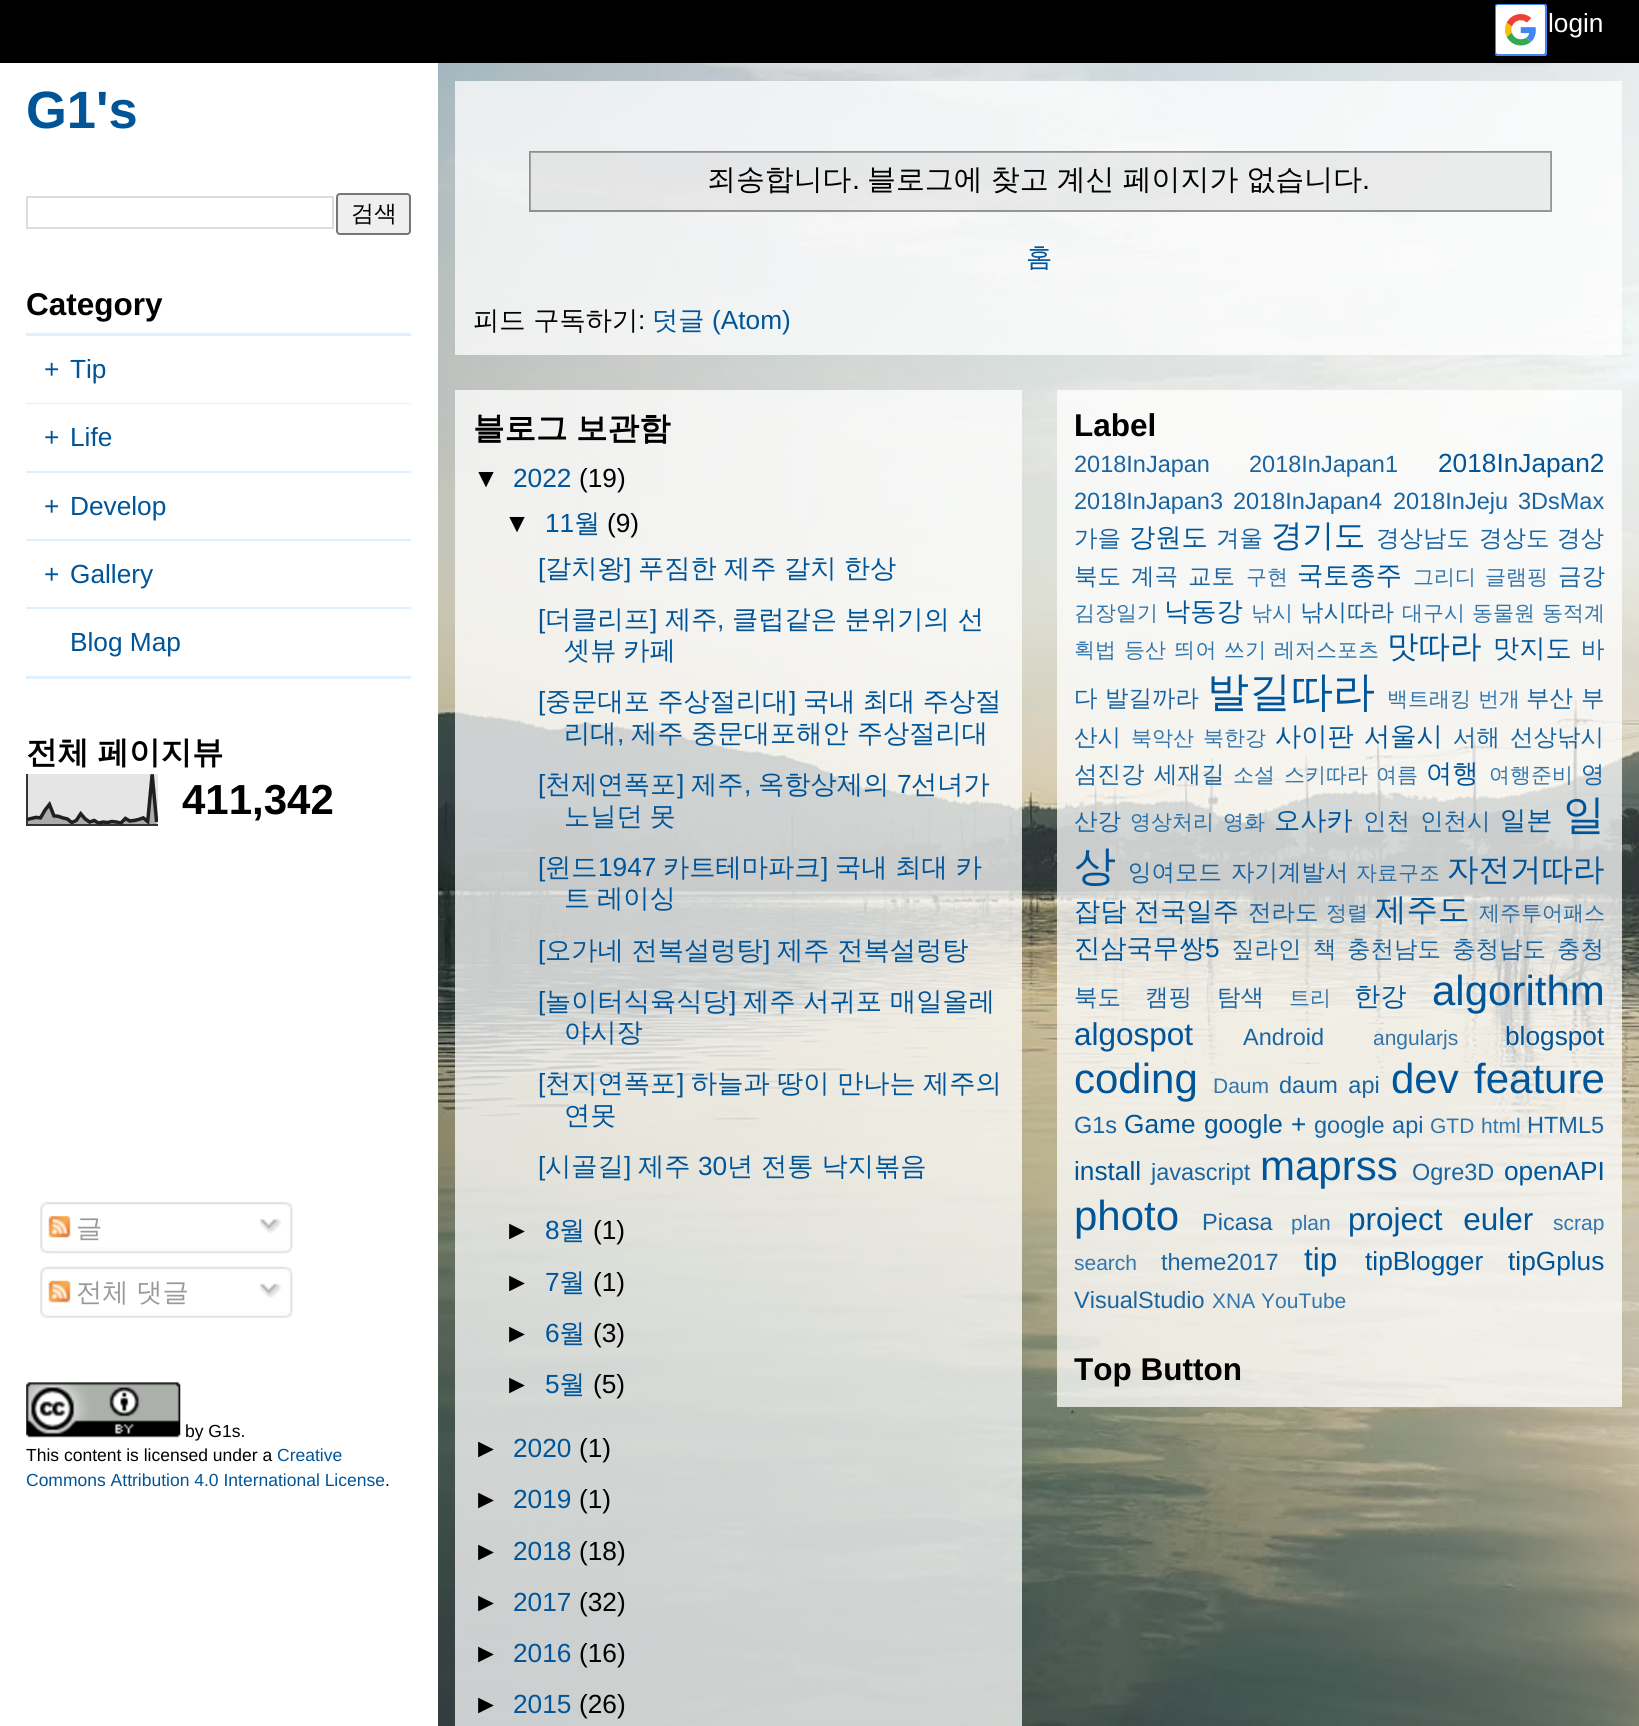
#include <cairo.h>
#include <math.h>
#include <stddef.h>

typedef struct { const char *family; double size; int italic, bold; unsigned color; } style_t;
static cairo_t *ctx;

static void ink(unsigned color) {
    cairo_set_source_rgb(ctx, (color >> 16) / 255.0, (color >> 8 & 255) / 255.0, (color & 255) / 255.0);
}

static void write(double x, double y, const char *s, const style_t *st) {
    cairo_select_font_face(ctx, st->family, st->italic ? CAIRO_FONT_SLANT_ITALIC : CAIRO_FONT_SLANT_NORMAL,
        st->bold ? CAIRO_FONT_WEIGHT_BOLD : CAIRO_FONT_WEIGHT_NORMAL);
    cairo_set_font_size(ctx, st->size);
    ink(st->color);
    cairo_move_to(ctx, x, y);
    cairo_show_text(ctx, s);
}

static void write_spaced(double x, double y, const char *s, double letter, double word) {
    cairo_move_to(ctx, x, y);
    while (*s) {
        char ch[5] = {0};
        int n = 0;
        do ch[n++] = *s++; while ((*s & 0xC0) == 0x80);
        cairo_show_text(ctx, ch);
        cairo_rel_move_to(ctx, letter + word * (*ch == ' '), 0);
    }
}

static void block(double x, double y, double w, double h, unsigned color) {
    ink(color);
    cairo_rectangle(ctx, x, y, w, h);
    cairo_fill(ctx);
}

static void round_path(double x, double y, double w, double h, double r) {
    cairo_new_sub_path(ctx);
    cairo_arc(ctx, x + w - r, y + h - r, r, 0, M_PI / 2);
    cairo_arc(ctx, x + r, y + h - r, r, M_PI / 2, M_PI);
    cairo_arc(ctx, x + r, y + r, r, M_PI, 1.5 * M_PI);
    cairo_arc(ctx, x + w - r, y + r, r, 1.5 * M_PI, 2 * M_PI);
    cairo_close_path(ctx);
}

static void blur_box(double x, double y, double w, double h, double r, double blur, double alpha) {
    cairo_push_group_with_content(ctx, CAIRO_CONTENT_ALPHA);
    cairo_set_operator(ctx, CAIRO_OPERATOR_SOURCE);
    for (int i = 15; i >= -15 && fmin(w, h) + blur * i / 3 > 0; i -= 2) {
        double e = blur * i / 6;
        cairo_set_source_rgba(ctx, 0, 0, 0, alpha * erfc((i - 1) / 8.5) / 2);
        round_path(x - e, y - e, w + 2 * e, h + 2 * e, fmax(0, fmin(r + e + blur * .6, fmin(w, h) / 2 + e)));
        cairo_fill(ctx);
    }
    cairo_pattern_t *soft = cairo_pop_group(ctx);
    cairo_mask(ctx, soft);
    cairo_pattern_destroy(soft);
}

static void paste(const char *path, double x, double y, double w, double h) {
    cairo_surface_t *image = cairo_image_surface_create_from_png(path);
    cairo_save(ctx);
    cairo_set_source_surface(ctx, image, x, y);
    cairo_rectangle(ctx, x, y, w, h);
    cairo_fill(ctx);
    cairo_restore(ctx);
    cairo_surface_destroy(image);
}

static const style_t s1 = {"Liberation Sans", 26.25, 0, 0, 0xffffff};
static const style_t s2 = {"Liberation Sans", 52.5, 0, 1, 0x005599};
static const style_t s3 = {"WenQuanYi Zen Hei Medium", 23, 0, 0, 0x000000};
static const style_t s4 = {"Liberation Sans", 31.5, 0, 1, 0x000000};
static const style_t s5 = {"Liberation Sans", 26.25, 0, 0, 0x005599};
static const style_t s6 = {"Liberation Sans", 42, 0, 1, 0x000000};
static const style_t s7 = {"WenQuanYi Zen Hei Medium", 26.25, 0, 0, 0x999999};
static const style_t s8 = {"Liberation Sans", 17.5, 0, 0, 0x000000};
static const style_t s9 = {"Liberation Sans", 17.5, 0, 0, 0x005599};
static const style_t s10 = {"WenQuanYi Zen Hei Medium", 28.9, 0, 0, 0x000000};
static const style_t s11 = {"Liberation Sans", 28.9, 0, 0, 0x000000};
static const style_t s12 = {"WenQuanYi Zen Hei Medium", 26.25, 0, 0, 0x005599};
static const style_t s13 = {"WenQuanYi Zen Hei Medium", 26.25, 0, 0, 0x000000};
static const style_t s14 = {"Liberation Sans", 26.25, 0, 0, 0x000000};
static const style_t s15 = {"Liberation Sans", 23.5, 0, 0, 0x1965a2};
static const style_t s16 = {"WenQuanYi Zen Hei Medium", 23.5, 0, 0, 0x1965a2};
static const style_t s17 = {"WenQuanYi Zen Hei Medium", 31.5, 0, 0, 0x005599};
static const style_t s18 = {"WenQuanYi Zen Hei Medium", 21, 0, 0, 0x3176ac};
static const style_t s19 = {"WenQuanYi Zen Hei Medium", 42, 0, 0, 0x005599};
static const style_t s20 = {"WenQuanYi Zen Hei Medium", 21, 0, 0, 0x2a6fa5};
static const style_t s21 = {"Liberation Sans", 42, 0, 0, 0x005599};
static const style_t s22 = {"Liberation Sans", 31.5, 0, 0, 0x005599};
static const style_t s23 = {"Liberation Sans", 21, 0, 0, 0x3176ac};

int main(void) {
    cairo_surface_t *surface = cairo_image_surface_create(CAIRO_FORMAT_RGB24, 1639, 1726);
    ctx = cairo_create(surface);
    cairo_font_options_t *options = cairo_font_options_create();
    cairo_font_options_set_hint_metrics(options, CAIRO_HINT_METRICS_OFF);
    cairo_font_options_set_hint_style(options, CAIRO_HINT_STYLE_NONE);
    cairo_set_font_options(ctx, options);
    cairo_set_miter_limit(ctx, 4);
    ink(0xffffff);
    cairo_paint(ctx);
    paste("pic1.png", 438, 63, 1201, 1663);
    block(0, 0, 1639, 63, 0x000000);
    ink(0x000000);
    blur_box(1495, 7, 52, 53, 2, 3.5, 0.25);
    ink(0x4285f4);
    round_path(1495, 4, 52, 52, 2);
    cairo_fill(ctx);
    ink(0xffffff);
    round_path(1496, 5, 49, 49, 2);
    cairo_fill(ctx);
    paste("pic2.png", 1505, 14, 31, 32);
    write(1548, 32, "login", &s1);
    write(26, 128, "G1's", &s2);
    cairo_rectangle(ctx, 27, 197, 306, 31);
    ink(0xdddddd);
    cairo_stroke(ctx);
    ink(0xefefef);
    round_path(337, 194, 73, 40, 3);
    cairo_fill_preserve(ctx);
    ink(0x767676);
    cairo_stroke(ctx);
    write(351, 221, "검색", &s3);
    write(26, 315, "Category", &s4);
    block(26, 333, 385, 346, 0xe0f0ff);
    block(26, 336, 385, 67, 0xffffff);
    write(44, 378, "+", &s5);
    write(70, 378, "Tip", &s5);
    block(26, 404, 385, 67, 0xffffff);
    write(44, 446, "+", &s5);
    write(70, 446, "Life", &s5);
    block(26, 473, 385, 66, 0xffffff);
    write(44, 515, "+", &s5);
    write(70, 515, "Develop", &s5);
    block(26, 541, 385, 66, 0xffffff);
    write(44, 583, "+", &s5);
    write(70, 583, "Gallery", &s5);
    block(26, 609, 385, 67, 0xffffff);
    write(70, 651, "Blog Map", &s5);
    cairo_select_font_face(ctx, "WenQuanYi Zen Hei", CAIRO_FONT_SLANT_NORMAL, CAIRO_FONT_WEIGHT_BOLD);
    cairo_set_font_size(ctx, 31.5);
    ink(0x000000);
    write_spaced(26, 763, "전체 페이지뷰", 0, -1);
    paste("pic3.png", 26, 774, 132, 52);
    write(182, 814, "411,342", &s6);
    paste("pic4.png", 40, 1202, 253, 47);
    paste("pic5.png", 48, 1216, 23, 22);
    write(76, 1237, "글", &s7);
    paste("pic6.png", 259, 1218, 23, 16);
    paste("pic7.png", 40, 1247, 252, 7);
    paste("pic8.png", 40, 1266, 253, 47);
    paste("pic9.png", 48, 1280, 23, 23);
    write(76, 1301, "전체 댓글", &s7);
    paste("pic10.png", 259, 1283, 23, 15);
    paste("pic11.png", 40, 1312, 252, 6);
    paste("pic12.png", 26, 1382, 155, 56);
    write(185, 1437, "by G1s.", &s8);
    write(26, 1461, "This content is licensed under a", &s8);
    write(277, 1461, "Creative", &s9);
    write(26, 1486, "Commons Attribution 4.0 International License", &s9);
    write(385, 1486, ".", &s8);
    cairo_set_source_rgba(ctx, 1, 1, 1, 0.75);
    cairo_rectangle(ctx, 455, 81, 1167, 274);
    cairo_fill(ctx);
    cairo_rectangle(ctx, 530, 152, 1021, 59);
    cairo_set_source_rgba(ctx, 0, 0, 0, 0.4);
    cairo_stroke(ctx);
    cairo_set_source_rgba(ctx, 0.8, 0.8, 0.8, 0.32);
    cairo_rectangle(ctx, 530, 152, 1021, 58);
    cairo_fill(ctx);
    write(707, 189, "죄송합니다", &s10);
    write(852, 189, ".", &s11);
    cairo_select_font_face(ctx, "WenQuanYi Zen Hei Medium", CAIRO_FONT_SLANT_NORMAL, CAIRO_FONT_WEIGHT_NORMAL);
    write_spaced(867, 189, "블로그에 찾고 계신 페이지가 없습니다", 0, -0.5);
    write(1362, 189, ".", &s11);
    write(1026, 266, "홈", &s12);
    write(473, 329, "피드 구독하기", &s13);
    write(638, 329, ":", &s14);
    write(652, 329, "덧글", &s12);
    write(712, 329, "(Atom)", &s5);
    cairo_set_source_rgba(ctx, 1, 1, 1, 0.75);
    cairo_rectangle(ctx, 455, 390, 567, 1336);
    cairo_fill(ctx);
    cairo_select_font_face(ctx, "WenQuanYi Zen Hei", CAIRO_FONT_SLANT_NORMAL, CAIRO_FONT_WEIGHT_BOLD);
    cairo_set_font_size(ctx, 31.5);
    ink(0x000000);
    write_spaced(473, 439, "블로그 보관함", 0, -1);
    write(473, 487, "▼", &s14);
    write(513, 487, "2022", &s5);
    write(579, 487, "(19)", &s14);
    write(504, 532, "▼", &s14);
    write(545, 532, "11", &s5);
    write(574, 532, "월", &s12);
    write(607, 532, "(9)", &s14);
    write(538, 577, "[", &s5);
    write(545, 577, "갈치왕", &s12);
    write(624, 577, "]", &s5);
    cairo_select_font_face(ctx, "WenQuanYi Zen Hei Medium", CAIRO_FONT_SLANT_NORMAL, CAIRO_FONT_WEIGHT_NORMAL);
    write_spaced(638, 577, "푸짐한 제주 갈치 한상", 0, -0.5);
    write(538, 628, "[", &s5);
    write(545, 628, "더클리프", &s12);
    write(650, 628, "]", &s5);
    write(665, 628, "제주", &s12);
    write(717, 628, ",", &s5);
    write(732, 628, "클럽같은 분위기의 선", &s12);
    write_spaced(564, 659, "셋뷰 카페", 0, -1);
    write(538, 710, "[", &s5);
    cairo_select_font_face(ctx, "WenQuanYi Zen Hei Medium", CAIRO_FONT_SLANT_NORMAL, CAIRO_FONT_WEIGHT_NORMAL);
    write_spaced(545, 710, "중문대포 주상절리대", 0, -0.5);
    write(789, 710, "]", &s5);
    cairo_select_font_face(ctx, "WenQuanYi Zen Hei Medium", CAIRO_FONT_SLANT_NORMAL, CAIRO_FONT_WEIGHT_NORMAL);
    write_spaced(803, 710, "국내 최대 주상절", 0, -0.5);
    write(564, 742, "리대", &s12);
    write(617, 742, ",", &s5);
    write(631, 742, "제주 중문대포해안 주상절리대", &s12);
    write(538, 793, "[", &s5);
    write(545, 793, "천제연폭포", &s12);
    write(677, 793, "]", &s5);
    write(691, 793, "제주", &s12);
    write(744, 793, ",", &s5);
    write(758, 793, "옥항상제의", &s12);
    write(897, 793, "7", &s5);
    write(911, 793, "선녀가", &s12);
    write_spaced(564, 825, "노닐던 못", 0, -1);
    write(538, 876, "[", &s5);
    write(545, 876, "윈드", &s12);
    write(598, 876, "1947", &s5);
    write(663, 876, "카트테마파크", &s12);
    write(821, 876, "]", &s5);
    write(835, 876, "국내 최대 카", &s12);
    write_spaced(564, 907, "트 레이싱", 0, -1);
    write(538, 959, "[", &s5);
    write(545, 959, "오가네 전복설렁탕", &s12);
    write(763, 959, "]", &s5);
    write(777, 959, "제주 전복설렁탕", &s12);
    write(538, 1010, "[", &s5);
    write(545, 1010, "놀이터식육식당", &s12);
    write(729, 1010, "]", &s5);
    write(743, 1010, "제주 서귀포 매일올레", &s12);
    write(564, 1041, "야시장", &s12);
    write(538, 1092, "[", &s5);
    write(545, 1092, "천지연폭포", &s12);
    write(677, 1092, "]", &s5);
    cairo_select_font_face(ctx, "WenQuanYi Zen Hei Medium", CAIRO_FONT_SLANT_NORMAL, CAIRO_FONT_WEIGHT_NORMAL);
    write_spaced(691, 1092, "하늘과 땅이 만나는 제주의", 0, -0.5);
    write(564, 1124, "연못", &s12);
    write(538, 1175, "[", &s5);
    write(545, 1175, "시골길", &s12);
    write(624, 1175, "]", &s5);
    write(638, 1175, "제주", &s12);
    write(698, 1175, "30", &s5);
    write(727, 1175, "년 전통 낙지볶음", &s12);
    write(504, 1239, "►", &s14);
    write(545, 1239, "8", &s5);
    write(559, 1239, "월", &s12);
    write(593, 1239, "(1)", &s14);
    write(504, 1291, "►", &s14);
    write(545, 1291, "7", &s5);
    write(559, 1291, "월", &s12);
    write(593, 1291, "(1)", &s14);
    write(504, 1342, "►", &s14);
    write(545, 1342, "6", &s5);
    write(559, 1342, "월", &s12);
    write(593, 1342, "(3)", &s14);
    write(504, 1393, "►", &s14);
    write(545, 1393, "5", &s5);
    write(559, 1393, "월", &s12);
    write(593, 1393, "(5)", &s14);
    write(473, 1457, "►", &s14);
    write(513, 1457, "2020", &s5);
    write(579, 1457, "(1)", &s14);
    write(473, 1508, "►", &s14);
    write(513, 1508, "2019", &s5);
    write(579, 1508, "(1)", &s14);
    write(473, 1560, "►", &s14);
    write(513, 1560, "2018", &s5);
    write(579, 1560, "(18)", &s14);
    write(473, 1611, "►", &s14);
    write(513, 1611, "2017", &s5);
    write(579, 1611, "(32)", &s14);
    write(473, 1662, "►", &s14);
    write(513, 1662, "2016", &s5);
    write(579, 1662, "(16)", &s14);
    write(473, 1713, "►", &s14);
    write(513, 1713, "2015", &s5);
    write(579, 1713, "(26)", &s14);
    cairo_set_source_rgba(ctx, 1, 1, 1, 0.75);
    cairo_rectangle(ctx, 1057, 390, 565, 1017);
    cairo_fill(ctx);
    write(1074, 436, "Label", &s4);
    write(1074, 472, "2018InJapan", &s15);
    write(1249, 472, "2018InJapan1", &s15);
    write(1438, 472, "2018InJapan2", &s5);
    write(1074, 509, "2018InJapan3", &s15);
    write(1233, 509, "2018InJapan4", &s15);
    write(1393, 509, "2018InJeju", &s15);
    write(1518, 509, "3DsMax", &s15);
    write(1074, 546, "가을", &s16);
    write(1129, 546, "강원도", &s12);
    write(1216, 546, "겨울", &s16);
    write(1271, 546, "경기도", &s17);
    write(1376, 546, "경상남도", &s16);
    write(1479, 546, "경상도", &s16);
    write(1557, 546, "경상", &s16);
    write(1074, 584, "북도", &s16);
    write(1131, 584, "계곡", &s16);
    write(1188, 584, "교토", &s16);
    write(1246, 584, "구현", &s18);
    write(1297, 584, "국토종주", &s12);
    write(1413, 584, "그리디", &s18);
    write(1485, 584, "글램핑", &s18);
    write(1558, 584, "금강", &s16);
    write(1074, 620, "김장일기", &s18);
    write(1164, 620, "낙동강", &s12);
    write(1251, 620, "낚시", &s18);
    write(1300, 620, "낚시따라", &s16);
    write(1402, 620, "대구시", &s18);
    write(1472, 620, "동물원", &s18);
    write(1542, 620, "동적계", &s18);
    write(1074, 657, "획법", &s18);
    write(1124, 657, "등산", &s18);
    write_spaced(1174, 657, "띄어 쓰기", 0.5, 0);
    write(1274, 657, "레저스포츠", &s18);
    write(1387, 657, "맛따라", &s17);
    write(1493, 657, "맛지도", &s12);
    write(1581, 657, "바", &s16);
    write(1074, 706, "다", &s16);
    write(1105, 706, "발길까라", &s16);
    write(1207, 706, "발길따라", &s19);
    write(1387, 706, "백트래킹", &s18);
    write(1478, 706, "번개", &s18);
    write(1526, 706, "부산", &s16);
    write(1581, 706, "부", &s16);
    write(1074, 745, "산시", &s16);
    write(1131, 745, "북악산", &s18);
    write(1203, 745, "북한강", &s18);
    write(1275, 745, "사이판", &s12);
    write(1364, 745, "서울시", &s12);
    write(1453, 745, "서해", &s16);
    write(1510, 745, "선상낚시", &s16);
    write(1074, 782, "섬진강", &s16);
    write(1154, 782, "세재길", &s16);
    write(1233, 782, "소설", &s18);
    write(1284, 782, "스키따라", &s18);
    write(1376, 782, "여름", &s18);
    write(1426, 782, "여행", &s12);
    write(1489, 782, "여행준비", &s18);
    write(1581, 782, "영", &s16);
    write(1074, 829, "산강", &s16);
    write(1130, 829, "영상처리", &s20);
    write(1223, 829, "영화", &s20);
    write(1274, 829, "오사카", &s12);
    write(1363, 829, "인천", &s16);
    write(1420, 829, "인천시", &s16);
    write(1500, 829, "일본", &s12);
    write(1563, 829, "일", &s19);
    write(1074, 880, "상", &s19);
    write(1128, 880, "잉여모드", &s16);
    write(1231, 880, "자기계발서", &s16);
    write(1356, 880, "자료구조", &s20);
    write(1447, 880, "자전거따라", &s17);
    write(1074, 920, "잡담", &s12);
    write(1134, 920, "전국일주", &s12);
    write(1248, 920, "전라도", &s16);
    write(1326, 920, "정렬", &s20);
    write(1375, 920, "제주도", &s17);
    write(1479, 920, "제주투어패스", &s20);
    write(1074, 957, "진삼국무쌍", &s12);
    write(1205, 957, "5", &s5);
    write(1231, 957, "짚라인", &s16);
    write(1313, 957, "책", &s16);
    write(1347, 957, "충천남도", &s16);
    write(1452, 957, "충청남도", &s16);
    write(1557, 957, "충청", &s16);
    write(1074, 1005, "북도", &s16);
    write(1145, 1005, "캠핑", &s16);
    write(1217, 1005, "탐색", &s16);
    write(1289, 1005, "트리", &s18);
    write(1354, 1005, "한강", &s12);
    write(1432, 1005, "algorithm", &s21);
    write(1074, 1045, "algospot", &s22);
    write(1243, 1045, "Android", &s15);
    write(1373, 1045, "angularjs", &s23);
    write(1505, 1045, "blogspot", &s5);
    write(1074, 1093, "coding", &s21);
    write(1213, 1093, "Daum", &s23);
    cairo_set_font_size(ctx, 23.5);
    ink(0x1965a2);
    write_spaced(1279, 1093, "daum api", 0, 4);
    write(1391, 1093, "dev", &s21);
    write(1474, 1093, "feature", &s21);
    write(1074, 1133, "G1s", &s15);
    write(1124, 1133, "Game", &s5);
    write_spaced(1204, 1133, "google +", 0, 1);
    cairo_set_font_size(ctx, 23.5);
    ink(0x1965a2);
    write_spaced(1314, 1133, "google api", 0, 1);
    write(1430, 1133, "GTD", &s23);
    write(1481, 1133, "html", &s23);
    write(1527, 1133, "HTML5", &s15);
    write(1074, 1180, "install", &s5);
    write(1151, 1180, "javascript", &s15);
    write(1260, 1180, "maprss", &s21);
    write(1412, 1180, "Ogre3D", &s15);
    write(1504, 1180, "openAPI", &s5);
    write(1074, 1230, "photo", &s21);
    write(1202, 1230, "Picasa", &s15);
    write(1291, 1230, "plan", &s23);
    cairo_set_font_size(ctx, 31.5);
    ink(0x005599);
    write_spaced(1348, 1230, "project euler", 0, 12);
    write(1553, 1230, "scrap", &s23);
    write(1074, 1270, "search", &s23);
    write(1161, 1270, "theme2017", &s15);
    write(1304, 1270, "tip", &s22);
    write(1365, 1270, "tipBlogger", &s5);
    write(1508, 1270, "tipGplus", &s5);
    write(1074, 1308, "VisualStudio", &s15);
    write(1212, 1308, "XNA YouTube", &s23);
    write(1074, 1380, "Top Button", &s4);
    cairo_surface_write_to_png(surface, "screenshot.png");
    cairo_font_options_destroy(options);
    cairo_destroy(ctx);
    cairo_surface_destroy(surface);
    return 0;
}
